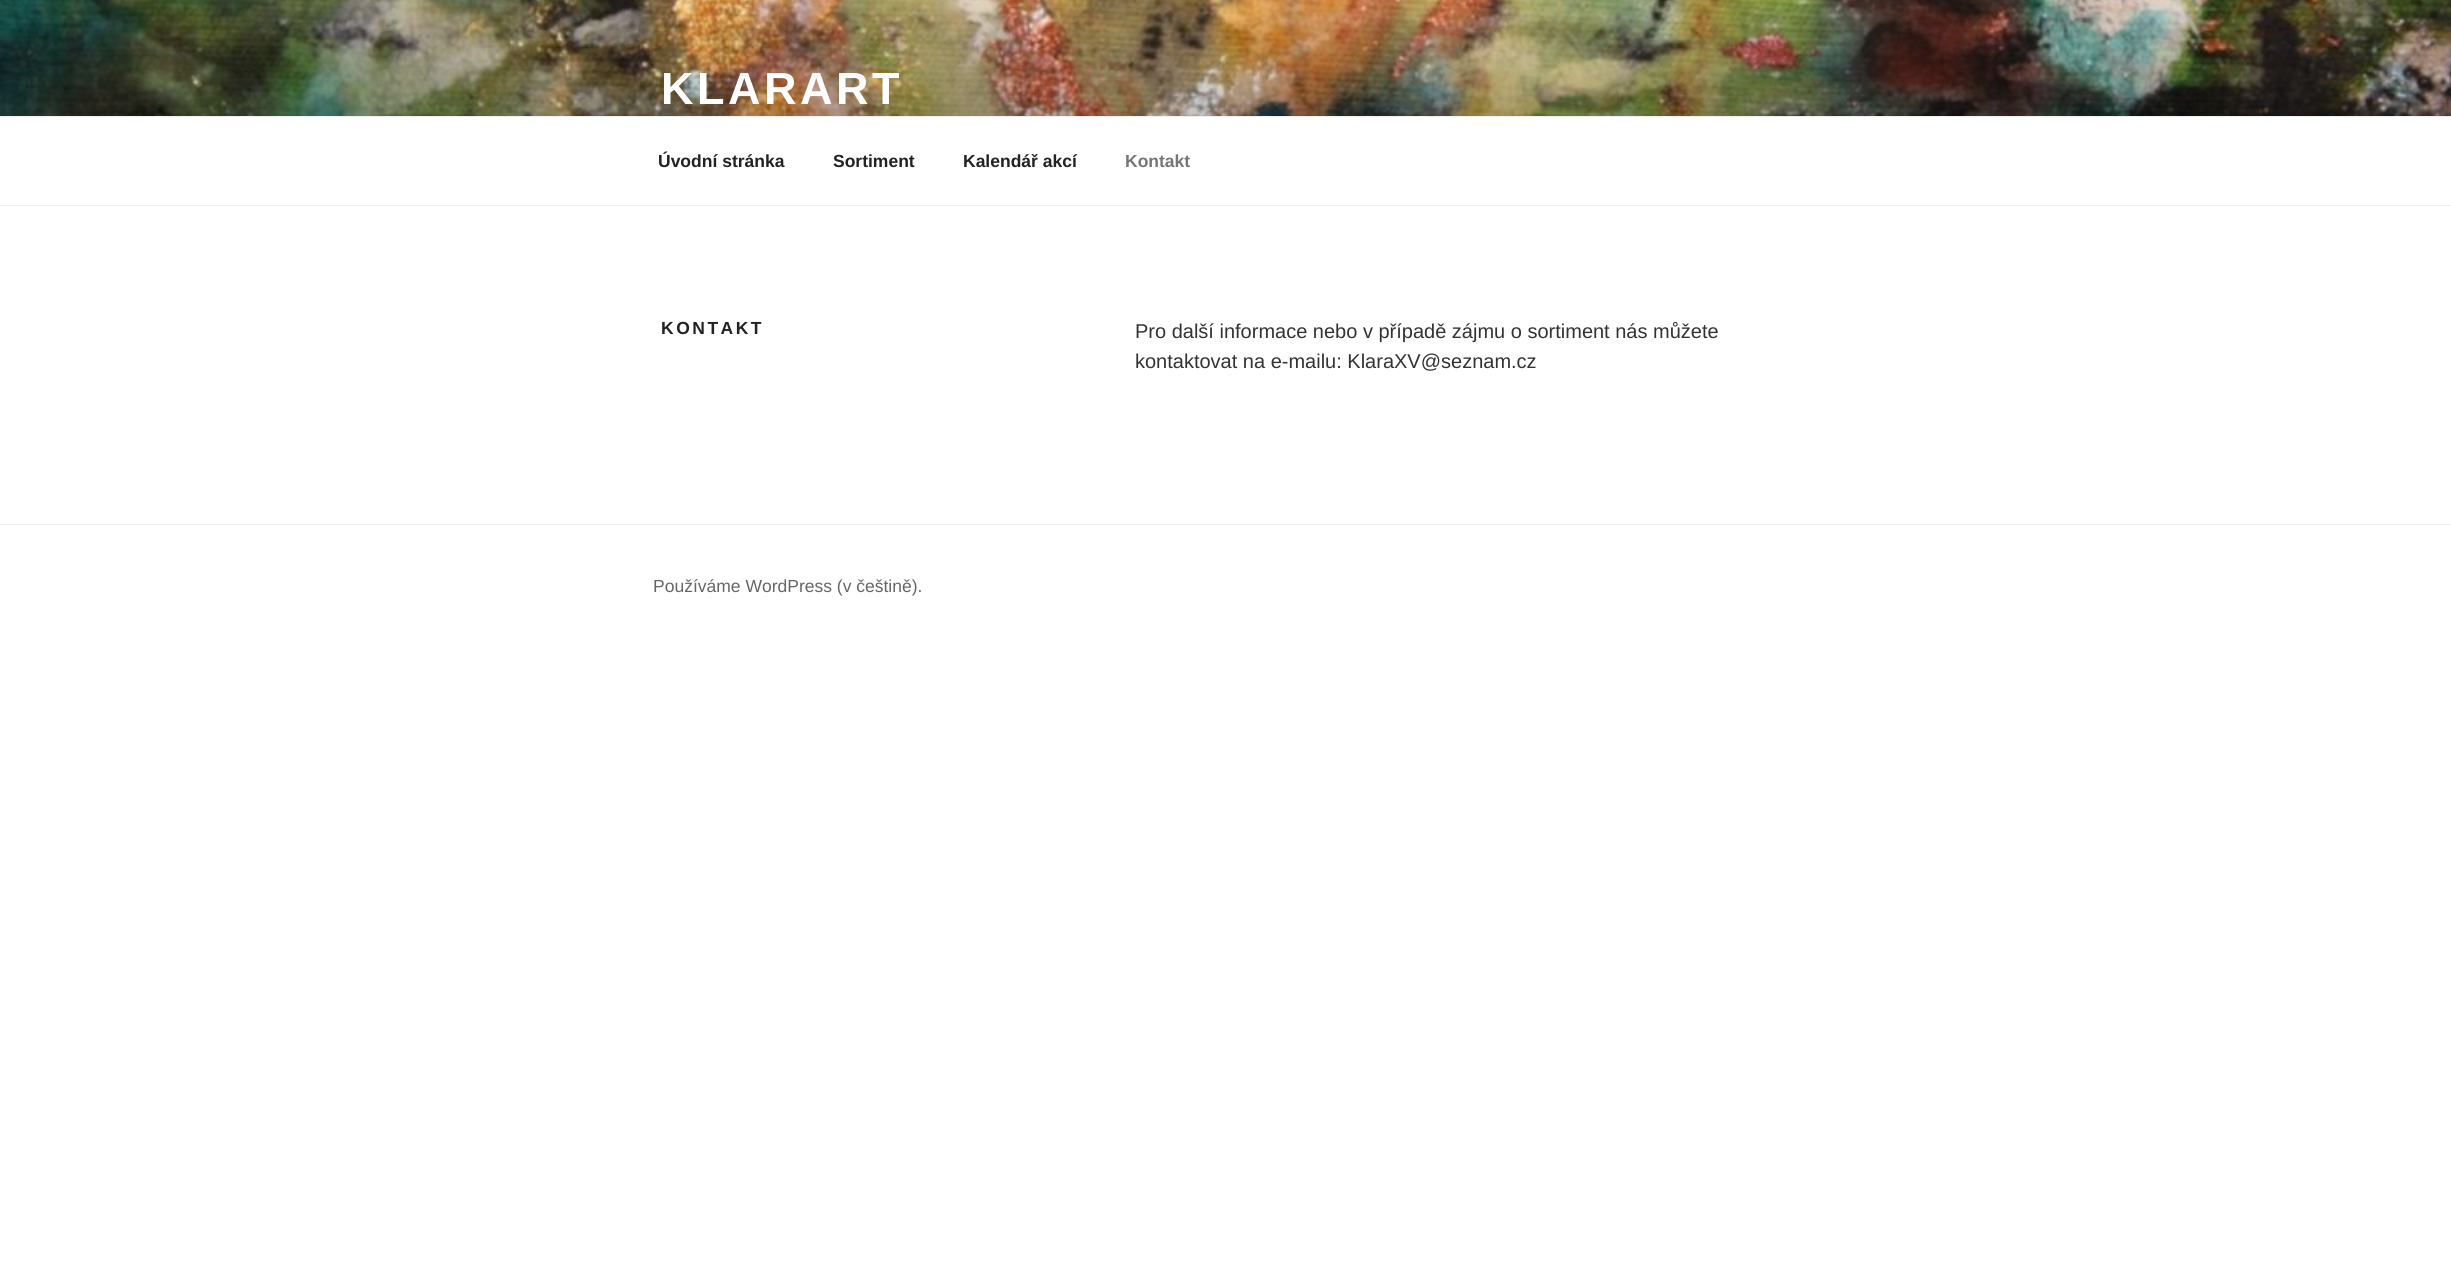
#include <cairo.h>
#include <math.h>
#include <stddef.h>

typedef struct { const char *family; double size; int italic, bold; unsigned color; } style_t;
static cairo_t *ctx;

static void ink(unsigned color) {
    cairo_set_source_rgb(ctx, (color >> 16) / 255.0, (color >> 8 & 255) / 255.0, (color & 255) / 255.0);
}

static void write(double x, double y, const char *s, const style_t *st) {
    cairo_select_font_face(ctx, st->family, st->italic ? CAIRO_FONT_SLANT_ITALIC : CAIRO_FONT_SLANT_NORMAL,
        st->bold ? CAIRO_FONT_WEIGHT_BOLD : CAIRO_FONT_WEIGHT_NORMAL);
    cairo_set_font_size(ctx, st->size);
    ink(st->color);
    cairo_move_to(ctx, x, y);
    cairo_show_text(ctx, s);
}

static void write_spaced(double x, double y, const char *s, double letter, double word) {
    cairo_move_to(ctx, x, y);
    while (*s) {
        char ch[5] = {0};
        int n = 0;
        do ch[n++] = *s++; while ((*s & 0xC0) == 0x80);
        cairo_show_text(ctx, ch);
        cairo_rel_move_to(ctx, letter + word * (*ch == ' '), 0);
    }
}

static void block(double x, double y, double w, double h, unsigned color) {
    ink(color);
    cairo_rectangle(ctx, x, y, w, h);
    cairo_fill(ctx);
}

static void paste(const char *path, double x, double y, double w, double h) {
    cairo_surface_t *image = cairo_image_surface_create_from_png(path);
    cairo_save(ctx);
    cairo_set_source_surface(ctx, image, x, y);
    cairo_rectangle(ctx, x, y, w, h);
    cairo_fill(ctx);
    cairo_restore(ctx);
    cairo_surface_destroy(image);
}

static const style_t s1 = {"Liberation Sans", 17.5, 0, 1, 0x222222};
static const style_t s2 = {"Liberation Sans", 17.5, 0, 1, 0x767676};
static const style_t s3 = {"Liberation Sans", 20, 0, 0, 0x333333};
static const style_t s4 = {"Liberation Sans", 17.5, 0, 0, 0x666666};

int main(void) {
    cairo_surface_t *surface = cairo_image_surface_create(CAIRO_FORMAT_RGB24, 2451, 1272);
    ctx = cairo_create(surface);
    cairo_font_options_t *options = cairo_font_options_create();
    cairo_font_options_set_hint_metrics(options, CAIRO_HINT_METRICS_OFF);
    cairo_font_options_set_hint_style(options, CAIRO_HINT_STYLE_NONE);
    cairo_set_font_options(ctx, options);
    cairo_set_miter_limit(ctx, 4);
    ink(0xffffff);
    cairo_paint(ctx);
    paste("pic1.png", 0, 0, 2451, 116);
    cairo_select_font_face(ctx, "Liberation Sans", CAIRO_FONT_SLANT_NORMAL, CAIRO_FONT_WEIGHT_BOLD);
    cairo_set_font_size(ctx, 45);
    ink(0xffffff);
    write_spaced(661, 104, "KLARART", 3.5, 0);
    block(0, 116, 2451, 1, 0xeeeeee);
    block(0, 205, 2451, 1, 0xeeeeee);
    write(658, 167, "Úvodní stránka", &s1);
    write(833, 167, "Sortiment", &s1);
    write(963, 167, "Kalendář akcí", &s1);
    write(1125, 167, "Kontakt", &s2);
    ink(0x222222);
    write_spaced(661, 334, "KONTAKT", 2.5, 0);
    write(1135, 338, "Pro další informace nebo v případě zájmu o sortiment nás můžete", &s3);
    write(1135, 368, "kontaktovat na e-mailu: KlaraXV@seznam.cz", &s3);
    block(0, 524, 2451, 1, 0xeeeeee);
    write(653, 592, "Používáme WordPress (v češtině).", &s4);
    cairo_surface_write_to_png(surface, "screenshot.png");
    cairo_font_options_destroy(options);
    cairo_destroy(ctx);
    cairo_surface_destroy(surface);
    return 0;
}
